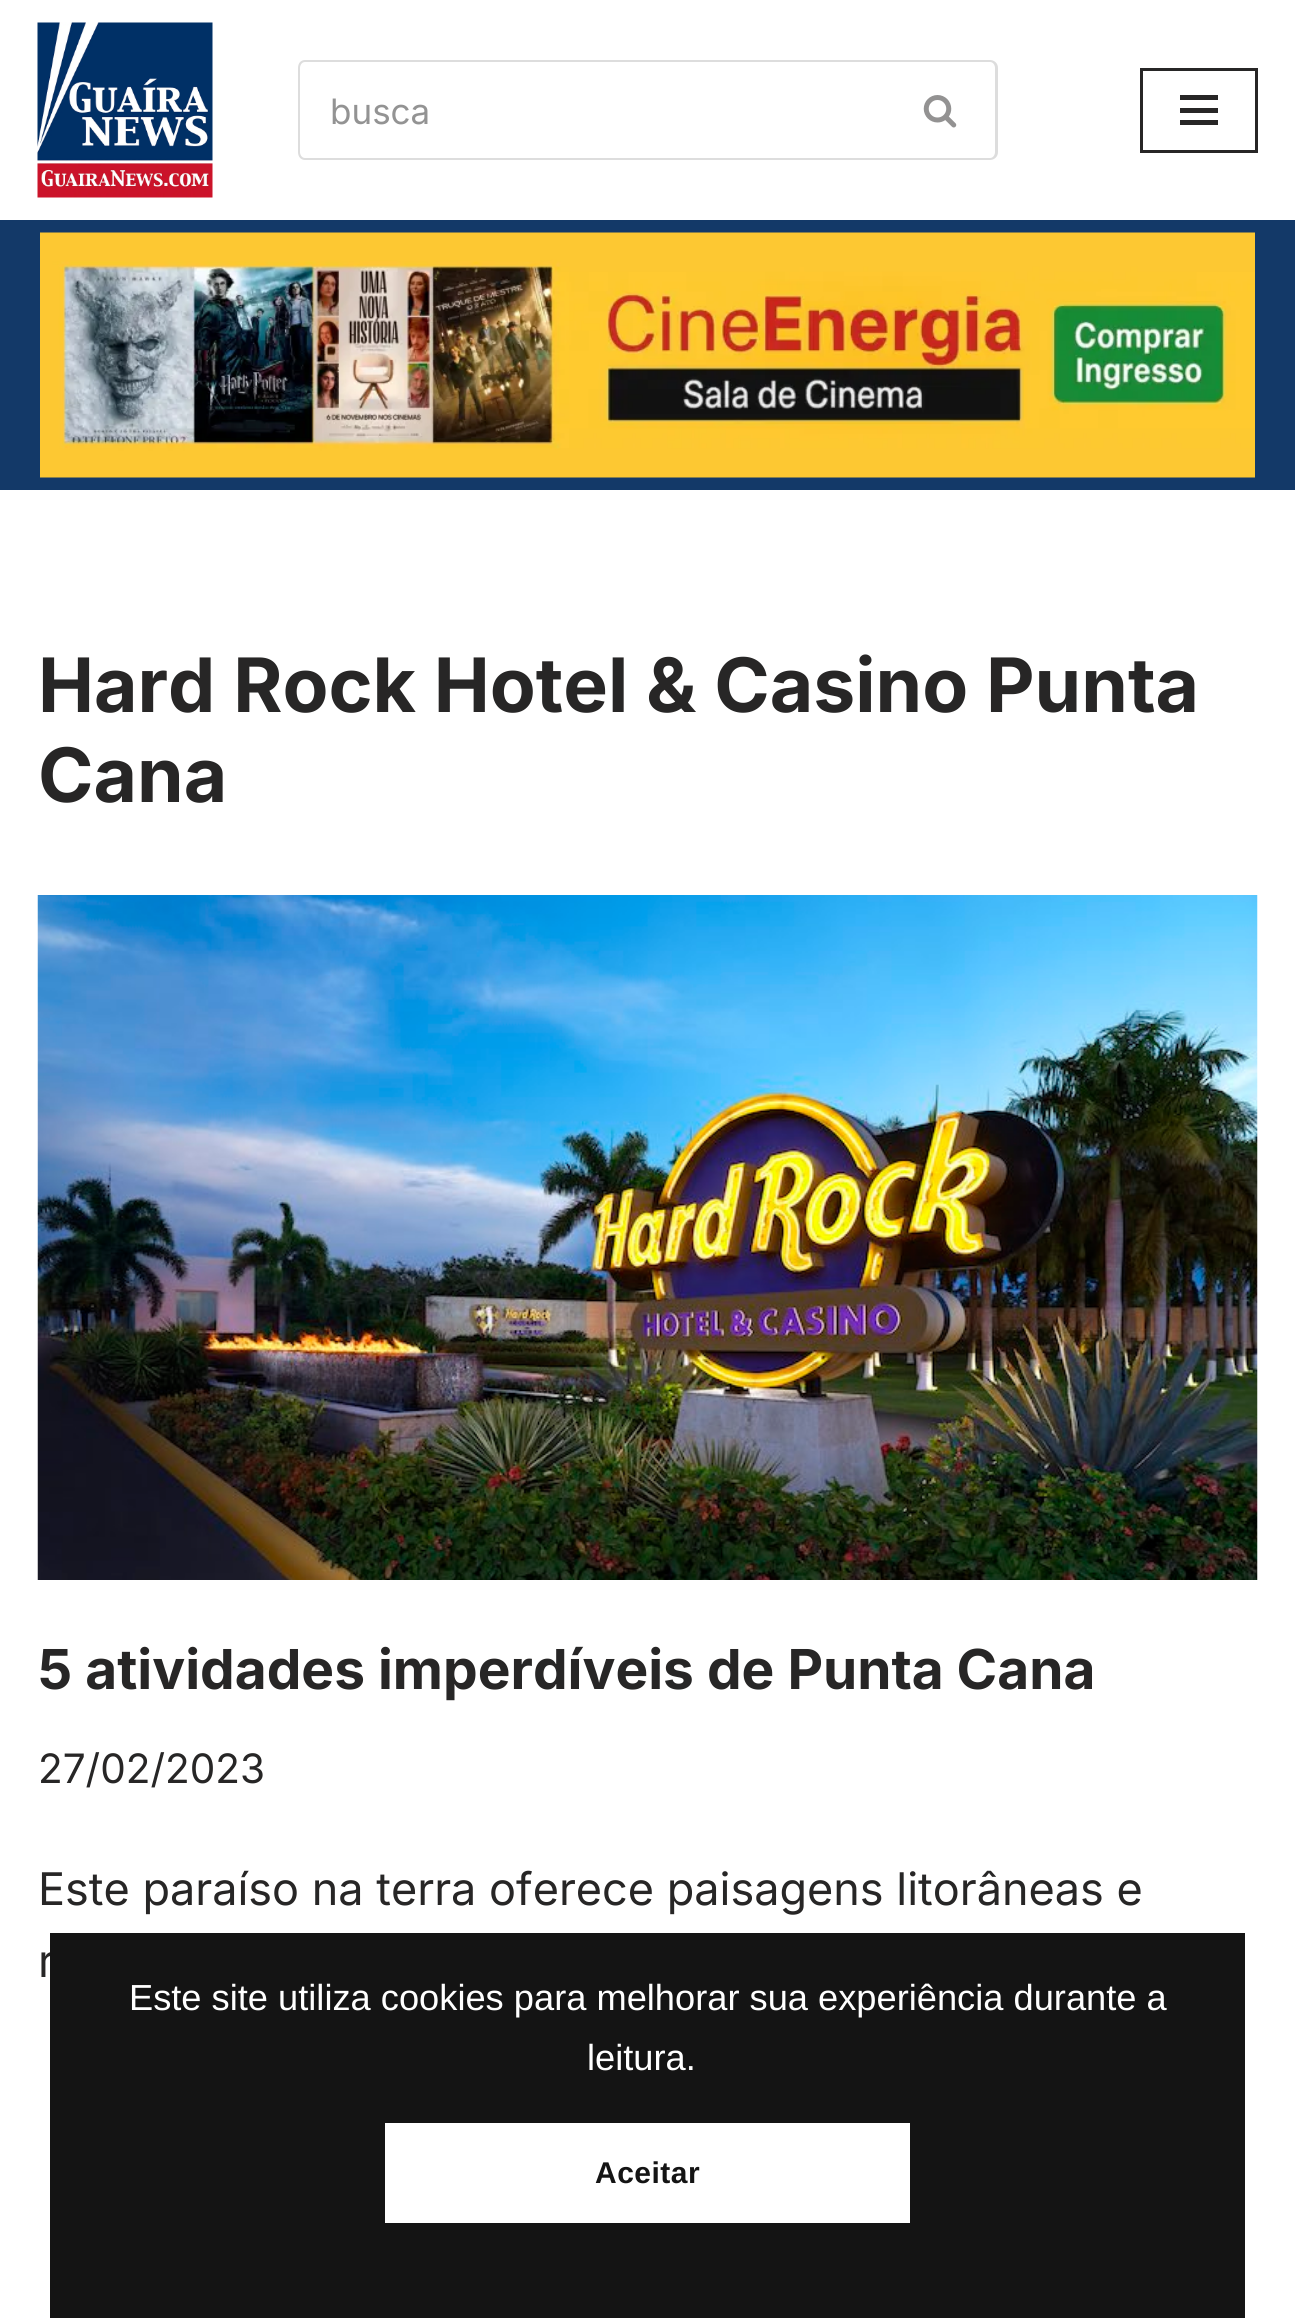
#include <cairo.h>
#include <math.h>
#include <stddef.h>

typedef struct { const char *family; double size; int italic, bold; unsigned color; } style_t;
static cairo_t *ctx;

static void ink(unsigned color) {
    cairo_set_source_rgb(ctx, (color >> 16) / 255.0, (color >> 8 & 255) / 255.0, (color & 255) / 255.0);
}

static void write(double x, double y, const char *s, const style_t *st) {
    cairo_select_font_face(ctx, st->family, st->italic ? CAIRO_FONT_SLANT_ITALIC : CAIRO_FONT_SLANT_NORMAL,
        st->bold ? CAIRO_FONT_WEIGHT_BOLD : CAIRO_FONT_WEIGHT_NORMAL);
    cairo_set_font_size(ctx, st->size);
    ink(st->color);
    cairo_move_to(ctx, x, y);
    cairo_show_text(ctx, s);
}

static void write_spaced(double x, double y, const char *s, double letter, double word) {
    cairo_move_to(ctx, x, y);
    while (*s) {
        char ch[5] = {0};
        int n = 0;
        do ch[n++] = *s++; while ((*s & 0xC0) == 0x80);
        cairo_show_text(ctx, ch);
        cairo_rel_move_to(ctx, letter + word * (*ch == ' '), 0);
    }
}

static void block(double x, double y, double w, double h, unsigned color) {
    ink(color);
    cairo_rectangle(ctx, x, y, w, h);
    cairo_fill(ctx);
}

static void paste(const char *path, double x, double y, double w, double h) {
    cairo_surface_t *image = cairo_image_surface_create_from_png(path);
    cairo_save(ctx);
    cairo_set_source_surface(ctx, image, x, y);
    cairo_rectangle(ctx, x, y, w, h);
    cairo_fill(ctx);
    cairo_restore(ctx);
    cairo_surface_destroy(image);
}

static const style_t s1 = {"Inter", 35, 0, 0, 0x939393};
static const style_t s2 = {"Inter", 75, 0, 1, 0x272626};
static const style_t s3 = {"Inter", 55, 0, 1, 0x272626};
static const style_t s4 = {"Inter", 40.5, 0, 0, 0x272626};
static const style_t s5 = {"Inter", 45, 0, 0, 0x272626};
static const style_t s6 = {"Liberation Sans", 36.25, 0, 0, 0xffffff};

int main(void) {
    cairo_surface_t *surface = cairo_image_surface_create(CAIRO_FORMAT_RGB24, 1295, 2322);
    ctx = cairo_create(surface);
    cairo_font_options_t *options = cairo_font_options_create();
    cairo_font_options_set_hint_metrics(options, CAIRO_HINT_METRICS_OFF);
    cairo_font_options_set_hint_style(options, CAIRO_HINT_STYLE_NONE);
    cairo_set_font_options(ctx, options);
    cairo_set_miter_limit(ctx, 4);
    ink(0xffffff);
    cairo_paint(ctx);
    paste("pic1.png", 37, 22, 176, 176);
    ink(0xdddddd);
    cairo_set_fill_rule(ctx, CAIRO_FILL_RULE_EVEN_ODD);
    cairo_new_path(ctx);
    cairo_move_to(ctx, 305, 60);
    cairo_line_to(ctx, 885, 60);
    cairo_line_to(ctx, 885, 160);
    cairo_line_to(ctx, 305, 160);
    cairo_curve_to(ctx, 301, 160, 298, 157, 298, 152);
    cairo_line_to(ctx, 298, 68);
    cairo_curve_to(ctx, 298, 63, 301, 60, 305, 60);
    cairo_close_path(ctx);
    cairo_move_to(ctx, 305, 62);
    cairo_line_to(ctx, 885, 62);
    cairo_line_to(ctx, 885, 158);
    cairo_line_to(ctx, 305, 158);
    cairo_curve_to(ctx, 302, 158, 300, 155, 300, 152);
    cairo_line_to(ctx, 300, 68);
    cairo_curve_to(ctx, 300, 65, 302, 62, 305, 62);
    cairo_close_path(ctx);
    cairo_fill(ctx);
    write(330, 124, "busca", &s1);
    ink(0xdddddd);
    cairo_new_path(ctx);
    cairo_move_to(ctx, 885, 60);
    cairo_line_to(ctx, 990, 60);
    cairo_curve_to(ctx, 994, 60, 998, 63, 998, 68);
    cairo_line_to(ctx, 998, 152);
    cairo_curve_to(ctx, 998, 157, 994, 160, 990, 160);
    cairo_line_to(ctx, 885, 160);
    cairo_close_path(ctx);
    cairo_move_to(ctx, 885, 62);
    cairo_line_to(ctx, 990, 62);
    cairo_curve_to(ctx, 993, 62, 995, 65, 995, 68);
    cairo_line_to(ctx, 995, 152);
    cairo_curve_to(ctx, 995, 155, 993, 158, 990, 158);
    cairo_line_to(ctx, 885, 158);
    cairo_close_path(ctx);
    cairo_fill(ctx);
    paste("pic2.png", 923, 95, 34, 33);
    cairo_rectangle(ctx, 1141.5, 69.5, 115, 82);
    ink(0x272626);
    cairo_set_line_width(ctx, 3);
    cairo_stroke(ctx);
    block(1180, 95, 38, 5, 0x272626);
    block(1180, 108, 38, 5, 0x272626);
    block(1180, 120, 38, 5, 0x272626);
    block(0, 220, 1295, 270, 0x133968);
    paste("pic3.png", 40, 232, 1215, 246);
    write(38, 712, "Hard Rock Hotel & Casino Punta", &s2);
    write(38, 802, "Cana", &s2);
    paste("pic4.png", 37, 895, 1221, 685);
    write(38, 1689, "5 atividades imperdíveis de Punta Cana", &s3);
    write(38, 1783, "27/02/2023", &s4);
    write(38, 1905, "Este paraíso na terra oferece paisagens litorâneas e", &s5);
    write(38, 1977, "r", &s5);
    block(50, 1933, 1195, 385, 0x141414);
    write(129, 2010, "Este site utiliza cookies para melhorar sua experiência durante a", &s6);
    write(587, 2070, "leitura.", &s6);
    block(385, 2123, 525, 100, 0xffffff);
    cairo_select_font_face(ctx, "Liberation Sans", CAIRO_FONT_SLANT_NORMAL, CAIRO_FONT_WEIGHT_BOLD);
    cairo_set_font_size(ctx, 30);
    ink(0x141414);
    write_spaced(595, 2183, "Aceitar", 0.5, 0);
    cairo_surface_write_to_png(surface, "screenshot.png");
    cairo_font_options_destroy(options);
    cairo_destroy(ctx);
    cairo_surface_destroy(surface);
    return 0;
}
